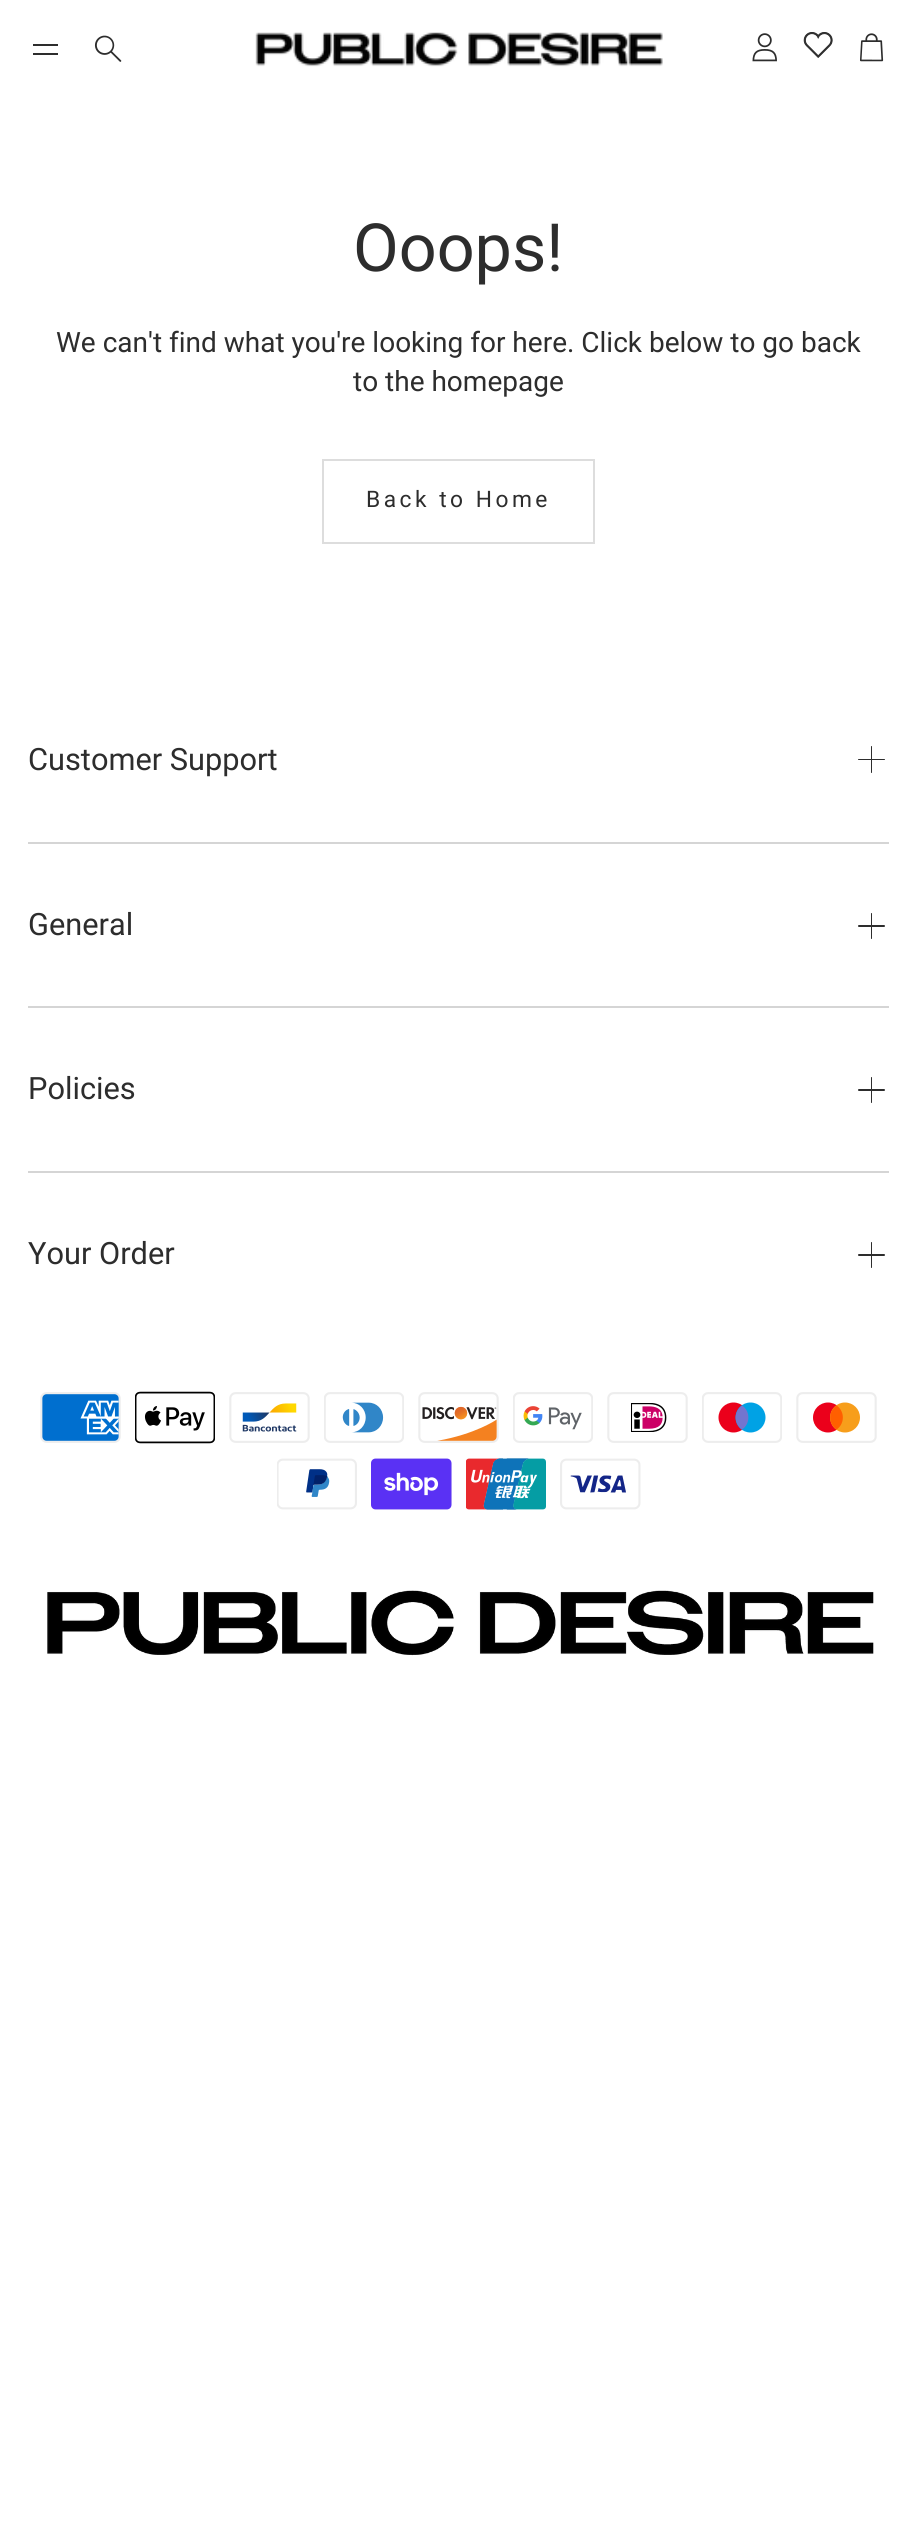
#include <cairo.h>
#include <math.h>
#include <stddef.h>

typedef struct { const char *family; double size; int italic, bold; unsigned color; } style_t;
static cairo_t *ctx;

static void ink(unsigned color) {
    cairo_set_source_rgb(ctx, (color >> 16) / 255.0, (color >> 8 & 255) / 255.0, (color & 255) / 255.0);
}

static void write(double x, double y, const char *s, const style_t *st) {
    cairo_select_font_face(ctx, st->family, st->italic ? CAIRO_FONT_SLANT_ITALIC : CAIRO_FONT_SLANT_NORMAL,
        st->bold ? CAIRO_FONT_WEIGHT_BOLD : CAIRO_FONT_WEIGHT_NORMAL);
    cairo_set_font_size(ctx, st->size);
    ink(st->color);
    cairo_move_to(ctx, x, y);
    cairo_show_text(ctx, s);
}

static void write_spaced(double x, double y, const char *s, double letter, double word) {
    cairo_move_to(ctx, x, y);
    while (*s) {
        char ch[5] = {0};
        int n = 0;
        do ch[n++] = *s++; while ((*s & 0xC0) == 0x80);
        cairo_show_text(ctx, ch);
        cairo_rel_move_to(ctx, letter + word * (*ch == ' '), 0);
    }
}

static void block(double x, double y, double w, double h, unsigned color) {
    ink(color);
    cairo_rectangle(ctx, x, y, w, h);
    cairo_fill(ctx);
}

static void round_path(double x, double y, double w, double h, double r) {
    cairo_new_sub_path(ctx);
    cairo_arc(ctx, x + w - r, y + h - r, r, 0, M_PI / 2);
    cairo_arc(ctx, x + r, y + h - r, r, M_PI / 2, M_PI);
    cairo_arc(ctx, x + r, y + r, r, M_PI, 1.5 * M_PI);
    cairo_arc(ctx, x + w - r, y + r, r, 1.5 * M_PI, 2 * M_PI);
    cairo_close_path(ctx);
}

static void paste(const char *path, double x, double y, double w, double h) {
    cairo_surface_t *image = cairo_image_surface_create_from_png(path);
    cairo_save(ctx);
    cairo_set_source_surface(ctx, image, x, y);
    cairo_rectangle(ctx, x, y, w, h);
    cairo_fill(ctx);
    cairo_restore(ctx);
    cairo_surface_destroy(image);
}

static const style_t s1 = {"Roboto", 66.5, 0, 0, 0x2d2d2d};
static const style_t s2 = {"Roboto", 28, 0, 0, 0x2d2d2d};
static const style_t s3 = {"Roboto", 30.75, 0, 0, 0x2d2d2d};

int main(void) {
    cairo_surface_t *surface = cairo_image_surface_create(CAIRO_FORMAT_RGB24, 917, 2542);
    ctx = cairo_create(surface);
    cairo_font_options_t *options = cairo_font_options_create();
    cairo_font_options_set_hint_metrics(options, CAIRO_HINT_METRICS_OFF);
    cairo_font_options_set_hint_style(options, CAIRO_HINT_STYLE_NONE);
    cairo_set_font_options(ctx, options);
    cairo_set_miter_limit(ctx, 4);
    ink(0xffffff);
    cairo_paint(ctx);
    block(33, 44, 25, 2, 0x2d2d2d);
    block(33, 53, 25, 2, 0x2d2d2d);
    paste("pic1.png", 94, 35, 28, 27);
    paste("pic2.png", 255, 32, 408, 35);
    paste("pic3.png", 752, 33, 25, 29);
    paste("pic4.png", 803, 32, 30, 26);
    paste("pic5.png", 860, 33, 24, 29);
    write(353, 271, "Ooops!", &s1);
    write(56, 352, "We can't find what you're looking for here. Click below to go back", &s2);
    write(353, 391, "to the homepage", &s2);
    cairo_rectangle(ctx, 323, 460, 271, 83);
    ink(0xdddddd);
    cairo_stroke(ctx);
    cairo_set_font_size(ctx, 22.75);
    ink(0x2d2d2d);
    write_spaced(366, 507, "Back to Home", 3.5, 0);
    write(28, 770, "Customer Support", &s3);
    round_path(858, 759, 27, 1, 0.5);
    cairo_fill(ctx);
    round_path(871, 746, 1, 27, 0.5);
    cairo_fill(ctx);
    block(28, 842, 861, 2, 0xd5d5d5);
    write(28, 935, "General", &s3);
    round_path(858, 925, 27, 2, 1);
    cairo_fill(ctx);
    round_path(871, 913, 1, 26, 0.5);
    cairo_fill(ctx);
    block(28, 1006, 861, 2, 0xd5d5d5);
    write(28, 1099, "Policies", &s3);
    round_path(858, 1089, 27, 2, 1);
    cairo_fill(ctx);
    round_path(871, 1077, 1, 26, 0.5);
    cairo_fill(ctx);
    block(28, 1171, 861, 2, 0xd5d5d5);
    write(28, 1264, "Your Order", &s3);
    round_path(858, 1254, 27, 2, 1);
    cairo_fill(ctx);
    round_path(871, 1242, 1, 26, 0.5);
    cairo_fill(ctx);
    paste("pic6.png", 40, 1392, 81, 51);
    paste("pic7.png", 135, 1391, 80, 53);
    paste("pic8.png", 229, 1392, 81, 51);
    paste("pic9.png", 324, 1392, 80, 51);
    paste("pic10.png", 418, 1392, 81, 51);
    paste("pic11.png", 513, 1392, 80, 51);
    paste("pic12.png", 607, 1392, 81, 51);
    paste("pic13.png", 702, 1392, 80, 51);
    paste("pic14.png", 796, 1392, 81, 51);
    paste("pic15.png", 277, 1458, 80, 52);
    paste("pic16.png", 371, 1458, 81, 52);
    paste("pic17.png", 466, 1458, 80, 52);
    paste("pic18.png", 560, 1458, 81, 52);
    paste("pic19.png", 47, 1590, 827, 66);
    cairo_surface_write_to_png(surface, "screenshot.png");
    cairo_font_options_destroy(options);
    cairo_destroy(ctx);
    cairo_surface_destroy(surface);
    return 0;
}
